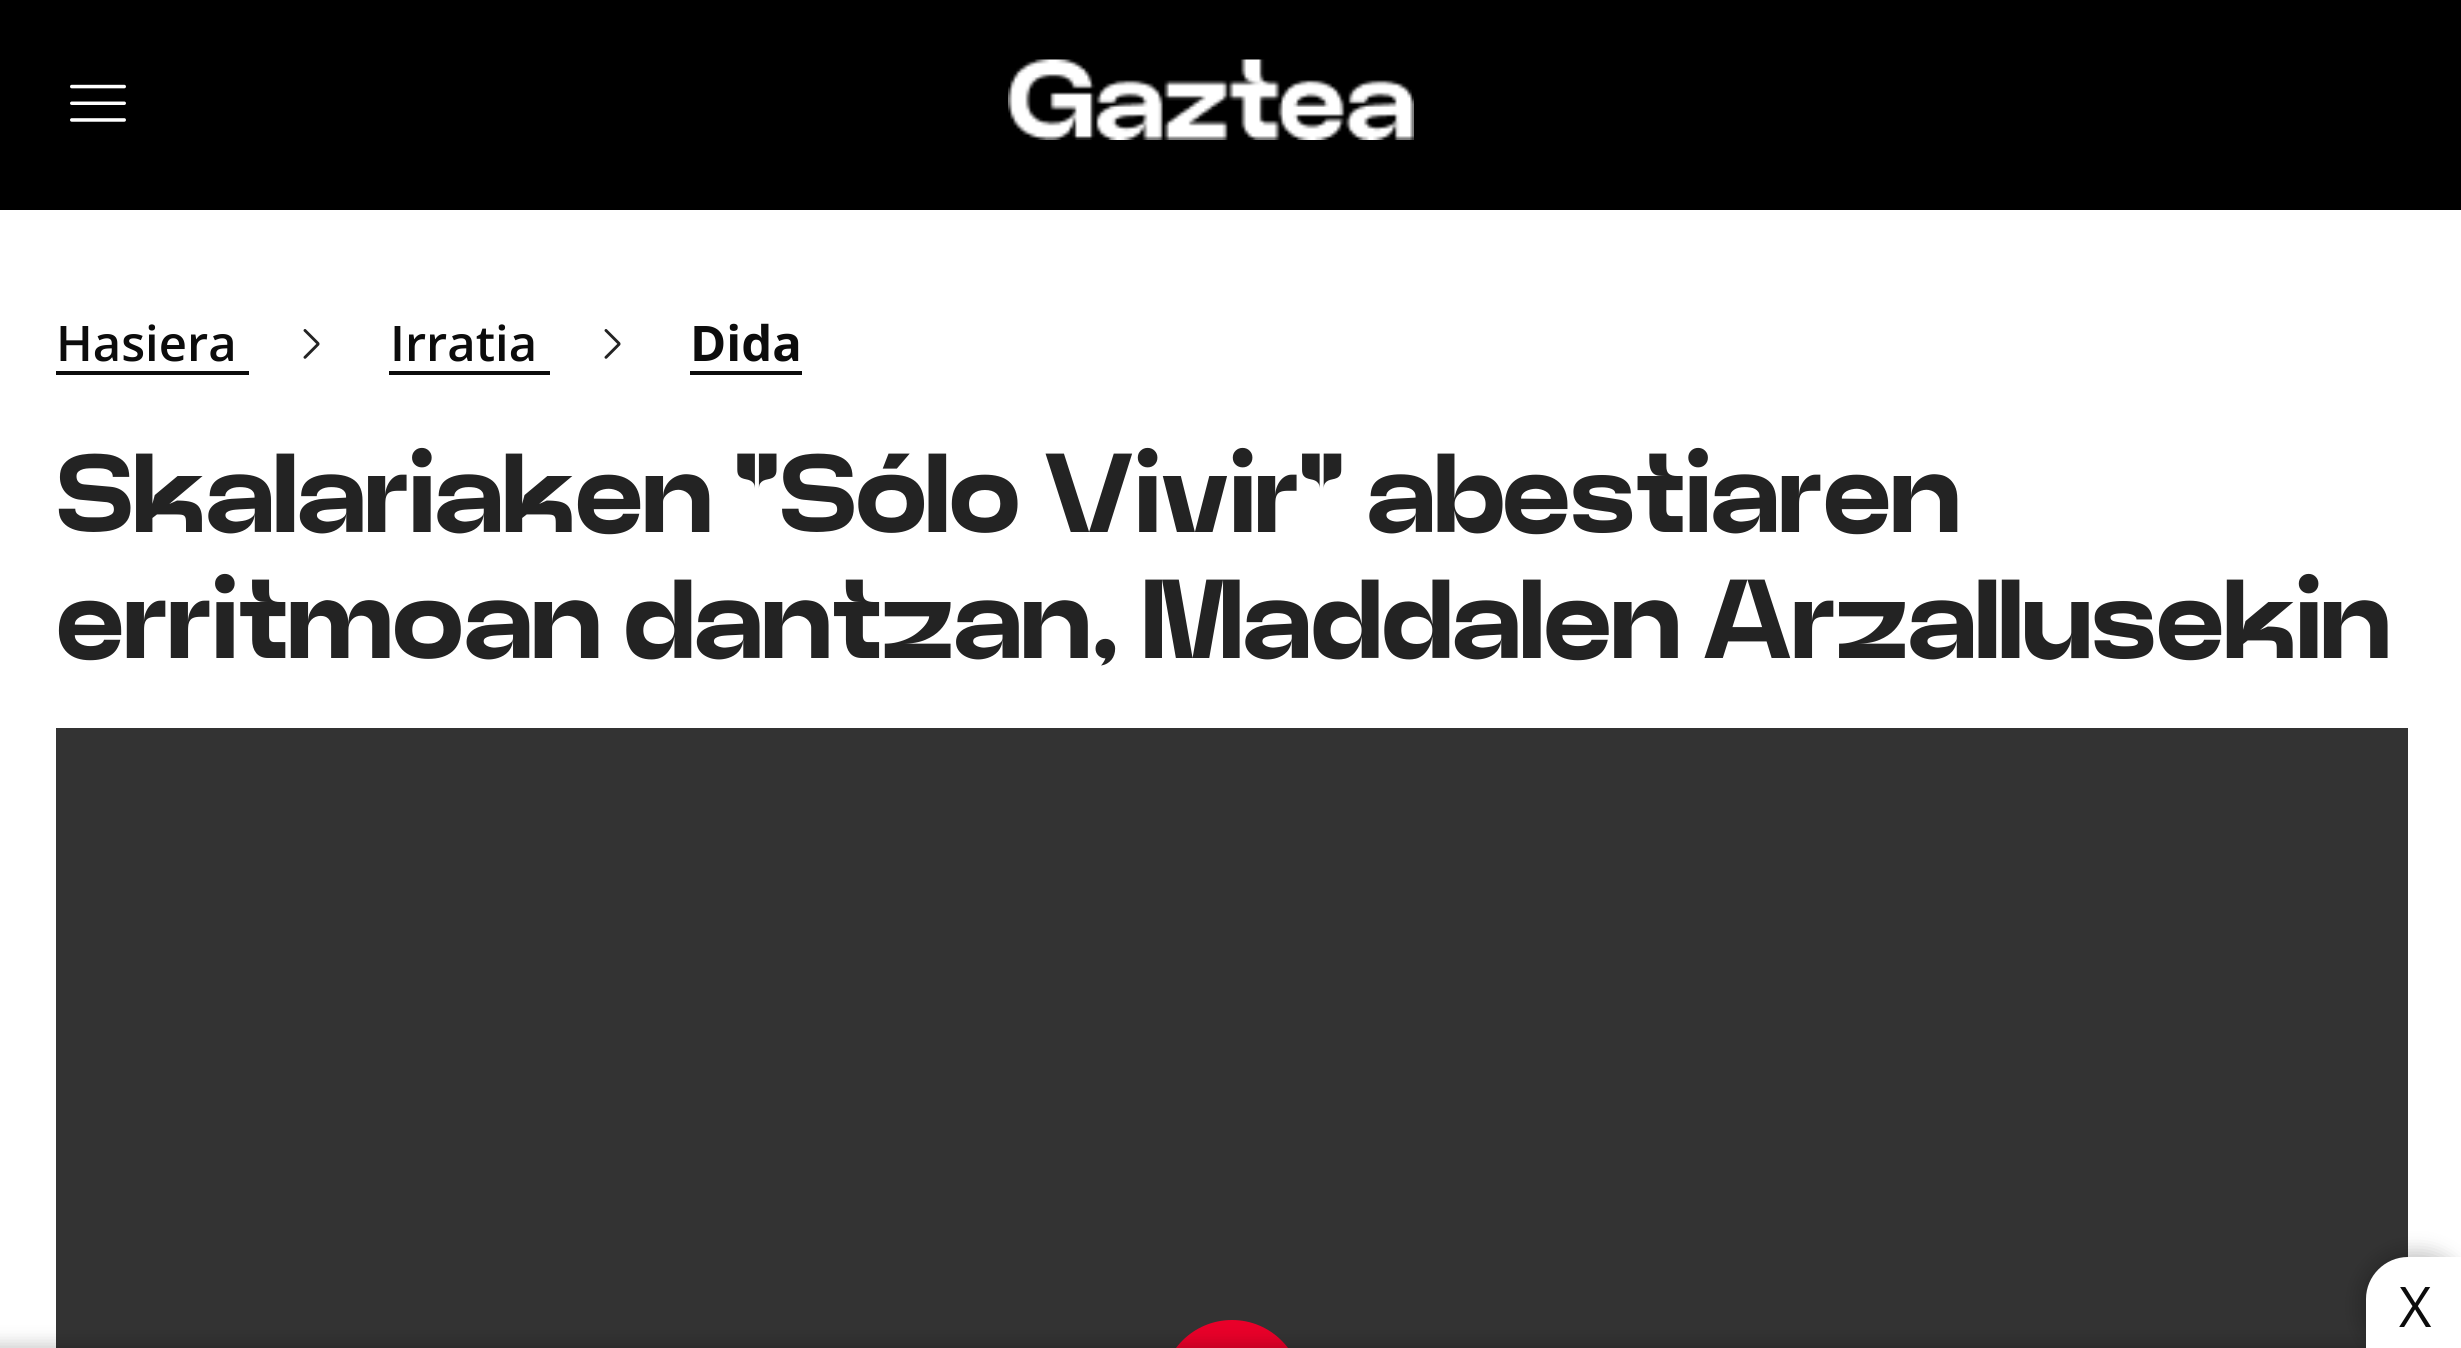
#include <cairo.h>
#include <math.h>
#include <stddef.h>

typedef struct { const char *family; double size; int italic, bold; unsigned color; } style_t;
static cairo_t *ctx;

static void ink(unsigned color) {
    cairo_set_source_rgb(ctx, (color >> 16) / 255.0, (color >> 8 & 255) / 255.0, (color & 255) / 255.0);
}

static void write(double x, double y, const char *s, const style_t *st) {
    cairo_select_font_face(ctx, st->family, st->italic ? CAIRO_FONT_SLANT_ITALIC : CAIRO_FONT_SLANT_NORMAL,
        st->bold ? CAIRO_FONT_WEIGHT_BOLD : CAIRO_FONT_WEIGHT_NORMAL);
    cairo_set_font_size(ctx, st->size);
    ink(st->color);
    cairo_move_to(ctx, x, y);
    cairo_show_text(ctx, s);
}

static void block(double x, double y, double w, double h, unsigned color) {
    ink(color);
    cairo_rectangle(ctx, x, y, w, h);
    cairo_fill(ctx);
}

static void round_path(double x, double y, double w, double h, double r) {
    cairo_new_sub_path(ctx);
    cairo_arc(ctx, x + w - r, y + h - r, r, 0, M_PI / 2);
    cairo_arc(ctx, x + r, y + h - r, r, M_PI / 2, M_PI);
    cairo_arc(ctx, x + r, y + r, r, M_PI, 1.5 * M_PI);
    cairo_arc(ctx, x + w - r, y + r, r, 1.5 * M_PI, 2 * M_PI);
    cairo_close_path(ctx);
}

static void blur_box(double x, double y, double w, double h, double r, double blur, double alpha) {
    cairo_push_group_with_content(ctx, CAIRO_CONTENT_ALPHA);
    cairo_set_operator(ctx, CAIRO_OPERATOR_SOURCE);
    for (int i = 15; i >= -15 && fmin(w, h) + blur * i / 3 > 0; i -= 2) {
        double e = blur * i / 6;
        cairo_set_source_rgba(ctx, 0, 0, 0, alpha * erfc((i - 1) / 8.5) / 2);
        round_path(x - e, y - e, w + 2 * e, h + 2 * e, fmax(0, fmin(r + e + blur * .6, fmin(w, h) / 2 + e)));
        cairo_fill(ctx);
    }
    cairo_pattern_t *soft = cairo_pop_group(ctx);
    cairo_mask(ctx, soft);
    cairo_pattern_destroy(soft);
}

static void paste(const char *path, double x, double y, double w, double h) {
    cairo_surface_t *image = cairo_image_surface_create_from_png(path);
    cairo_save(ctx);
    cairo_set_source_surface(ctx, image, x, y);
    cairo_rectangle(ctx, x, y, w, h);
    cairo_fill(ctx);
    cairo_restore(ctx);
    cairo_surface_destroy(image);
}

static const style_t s1 = {"Open Sans SemiBold", 49, 0, 0, 0x0c0c0c};
static const style_t s2 = {"Open Sans", 49, 0, 1, 0x0c0c0c};
static const style_t s3 = {"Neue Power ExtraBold", 112, 0, 0, 0x232323};
static const style_t s4 = {"Open Sans", 56, 0, 0, 0x0c0c0c};

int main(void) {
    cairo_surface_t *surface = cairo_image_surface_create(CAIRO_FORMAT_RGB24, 2461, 1348);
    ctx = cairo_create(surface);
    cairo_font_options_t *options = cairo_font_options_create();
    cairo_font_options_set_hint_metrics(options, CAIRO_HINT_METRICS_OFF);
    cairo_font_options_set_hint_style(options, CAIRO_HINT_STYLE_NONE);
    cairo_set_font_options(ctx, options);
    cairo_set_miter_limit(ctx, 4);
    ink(0xffffff);
    cairo_paint(ctx);
    block(0, 0, 2461, 210, 0x000000);
    paste("pic1.png", 70, 84, 56, 38);
    paste("pic2.png", 1008, 59, 406, 81);
    write(56, 361, "Hasiera", &s1);
    block(56, 371, 193, 4, 0x0c0c0c);
    paste("pic3.png", 303, 329, 17, 30);
    write(390, 361, "Irratia", &s1);
    block(389, 371, 161, 4, 0x0c0c0c);
    paste("pic3.png", 604, 329, 17, 30);
    write(690, 361, "Dida", &s2);
    block(690, 371, 112, 4, 0x0c0c0c);
    write(56, 532, "Skalariaken \"Sólo Vivir\" abestiaren", &s3);
    write(56, 658, "erritmoan dantzan, Maddalen Arzallusekin", &s3);
    block(56, 728, 2352, 620, 0x333333);
    ink(0xe90029);
    round_path(1162, 1320, 140, 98, 70);
    cairo_fill(ctx);
    ink(0x000000);
    blur_box(-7, 1344, 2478, 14, 0, 9, 0.21);
    blur_box(2359, 1250, 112, 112, 49, 9, 0.21);
    ink(0xffffff);
    cairo_new_path(ctx);
    cairo_move_to(ctx, 2408, 1257);
    cairo_line_to(ctx, 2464, 1257);
    cairo_line_to(ctx, 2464, 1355);
    cairo_line_to(ctx, 2366, 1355);
    cairo_line_to(ctx, 2366, 1299);
    cairo_curve_to(ctx, 2366, 1276, 2385, 1257, 2408, 1257);
    cairo_close_path(ctx);
    cairo_fill(ctx);
    write(2399, 1327, "X", &s4);
    cairo_surface_write_to_png(surface, "screenshot.png");
    cairo_font_options_destroy(options);
    cairo_destroy(ctx);
    cairo_surface_destroy(surface);
    return 0;
}
